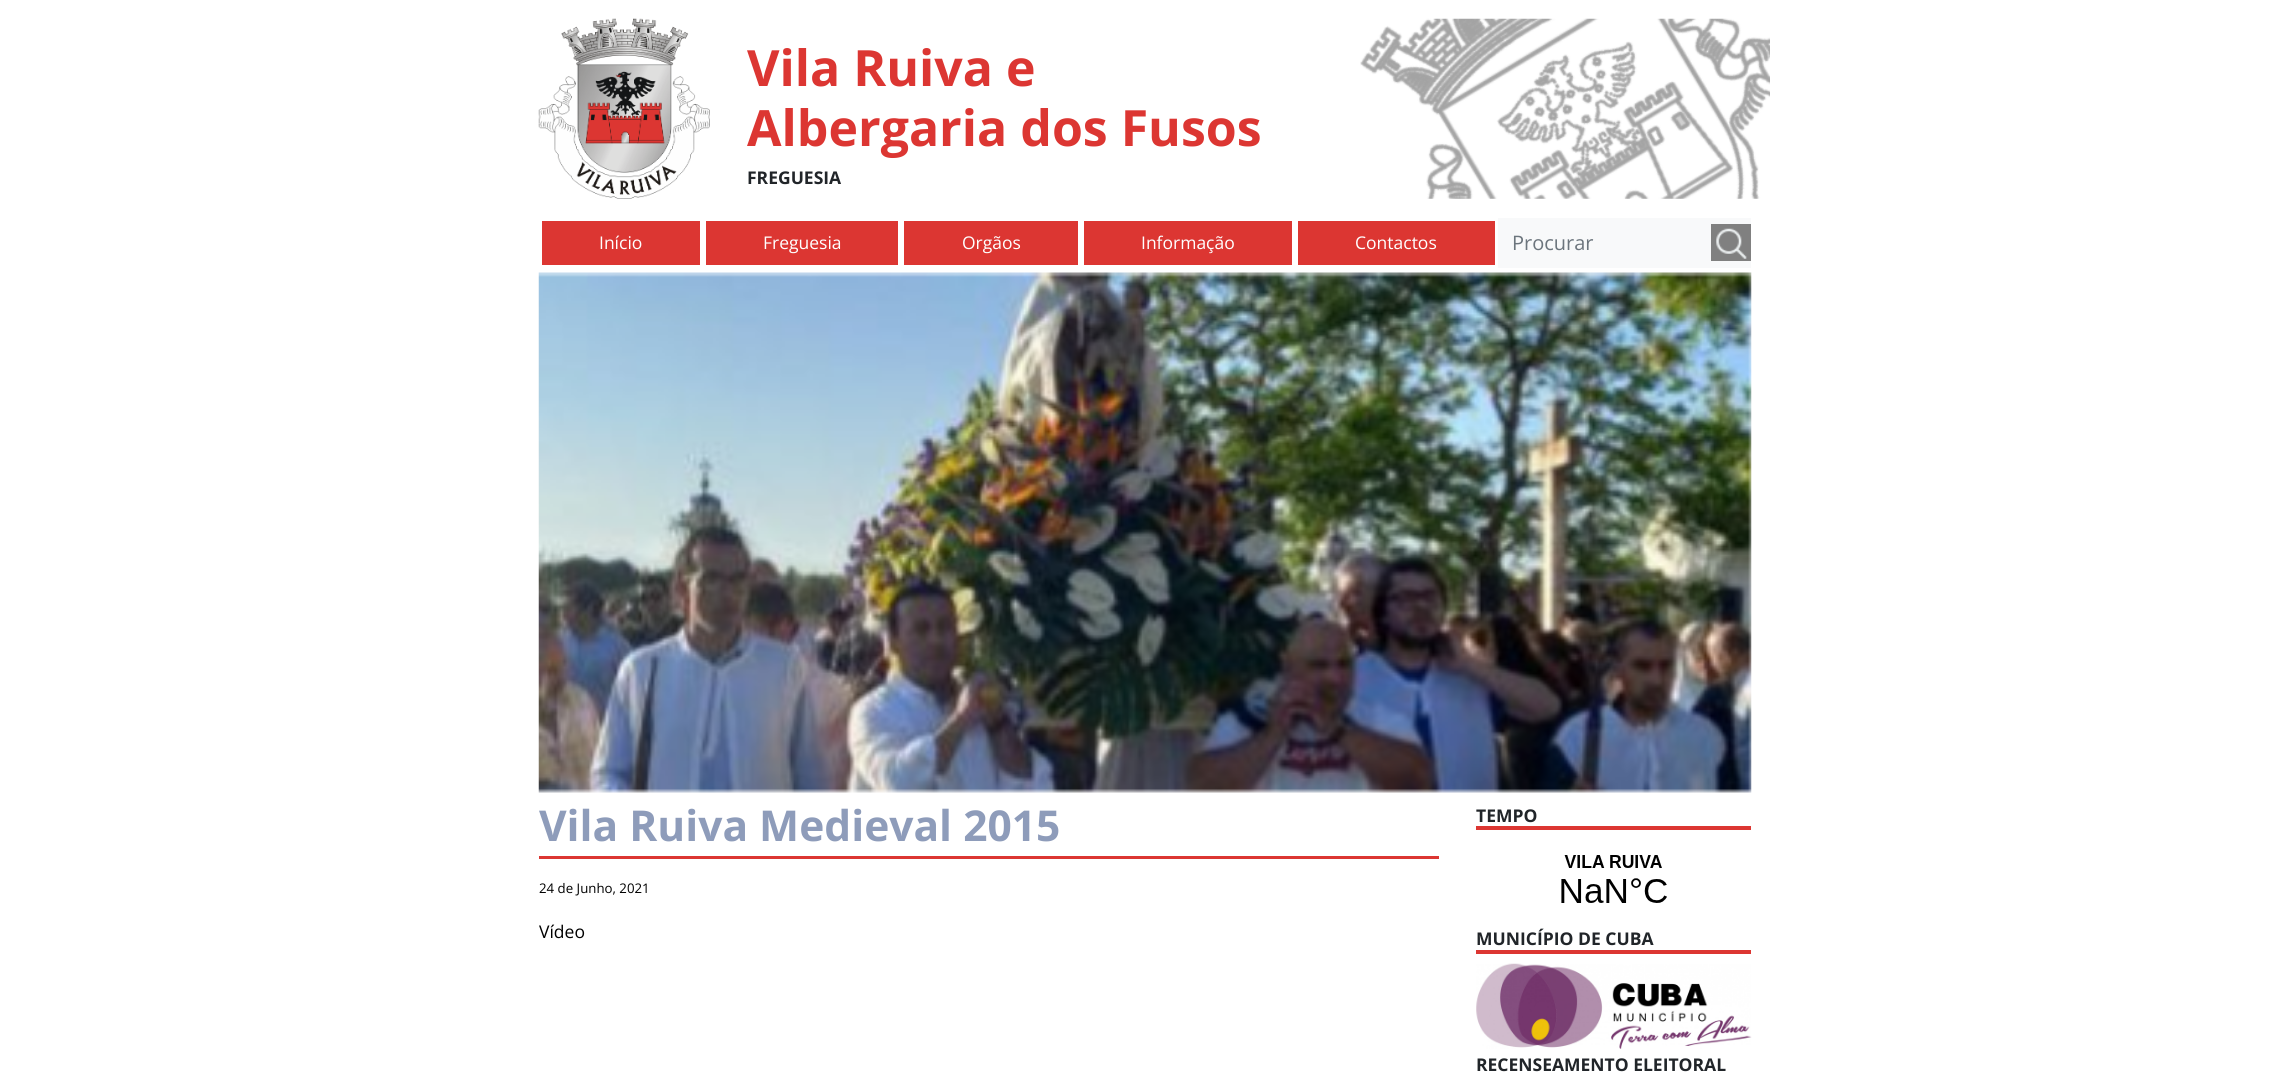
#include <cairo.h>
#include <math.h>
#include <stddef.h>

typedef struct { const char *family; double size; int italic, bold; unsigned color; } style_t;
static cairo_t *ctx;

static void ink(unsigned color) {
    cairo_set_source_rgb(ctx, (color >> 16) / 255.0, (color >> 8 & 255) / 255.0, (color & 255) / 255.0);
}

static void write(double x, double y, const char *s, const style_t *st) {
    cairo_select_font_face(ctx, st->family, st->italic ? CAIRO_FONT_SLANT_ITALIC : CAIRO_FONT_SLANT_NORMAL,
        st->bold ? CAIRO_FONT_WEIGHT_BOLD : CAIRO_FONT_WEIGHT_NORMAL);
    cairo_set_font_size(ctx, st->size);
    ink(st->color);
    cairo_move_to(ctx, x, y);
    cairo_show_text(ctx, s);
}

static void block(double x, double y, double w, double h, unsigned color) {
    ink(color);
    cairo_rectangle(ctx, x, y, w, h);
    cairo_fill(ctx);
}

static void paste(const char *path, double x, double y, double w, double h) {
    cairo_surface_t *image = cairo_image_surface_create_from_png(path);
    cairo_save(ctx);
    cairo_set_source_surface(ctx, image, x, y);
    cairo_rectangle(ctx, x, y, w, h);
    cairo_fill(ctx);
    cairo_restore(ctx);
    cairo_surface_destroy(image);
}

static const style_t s1 = {"Open Sans", 50, 0, 1, 0xdc3632};
static const style_t s2 = {"Open Sans", 17.5, 0, 1, 0x212529};
static const style_t s3 = {"Open Sans", 17.5, 0, 0, 0xffffff};
static const style_t s4 = {"Open Sans", 20, 0, 0, 0x6c757d};
static const style_t s5 = {"Open Sans", 42.5, 0, 1, 0x8e9cba};
static const style_t s6 = {"Open Sans", 13.25, 0, 0, 0x000000};
static const style_t s7 = {"Open Sans", 17.5, 0, 0, 0x000000};

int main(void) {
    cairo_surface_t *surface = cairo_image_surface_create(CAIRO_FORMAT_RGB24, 2289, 1073);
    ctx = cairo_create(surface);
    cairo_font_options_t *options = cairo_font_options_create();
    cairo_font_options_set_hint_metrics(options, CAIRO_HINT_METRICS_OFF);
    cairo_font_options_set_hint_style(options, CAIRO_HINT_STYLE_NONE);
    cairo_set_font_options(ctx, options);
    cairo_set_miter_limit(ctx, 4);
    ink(0xffffff);
    cairo_paint(ctx);
    paste("pic1.png", 1360, 18, 410, 181);
    paste("pic2.png", 538, 18, 172, 181);
    write(747, 86, "Vila Ruiva e", &s1);
    write(747, 146, "Albergaria dos Fusos", &s1);
    write(747, 184, "FREGUESIA", &s2);
    block(1498, 218, 253, 50, 0xf8f9fa);
    block(542, 221, 158, 44, 0xdc3632);
    write(599, 249, "Início", &s3);
    block(706, 221, 192, 44, 0xdc3632);
    write(763, 249, "Freguesia", &s3);
    block(904, 221, 174, 44, 0xdc3632);
    write(962, 249, "Orgãos", &s3);
    block(1084, 221, 208, 44, 0xdc3632);
    write(1141, 249, "Informação", &s3);
    block(1298, 221, 197, 44, 0xdc3632);
    write(1355, 249, "Contactos", &s3);
    write(1512, 250, "Procurar", &s4);
    block(1711, 224, 40, 37, 0x808080);
    paste("pic3.png", 1716, 228, 31, 31);
    paste("pic4.png", 538, 272, 1214, 521);
    block(539, 856, 900, 3, 0xdc3632);
    write(539, 841, "Vila Ruiva Medieval 2015", &s5);
    write(539, 893, "24 de Junho, 2021", &s6);
    write(539, 938, "Vídeo", &s7);
    block(1476, 826, 275, 4, 0xdc3632);
    write(1476, 822, "TEMPO", &s2);
    paste("pic5.png", 1561, 855, 106, 48);
    block(1476, 950, 275, 4, 0xdc3632);
    write(1476, 945, "MUNICÍPIO DE CUBA", &s2);
    paste("pic6.png", 1476, 963, 276, 86);
    write(1476, 1071, "RECENSEAMENTO ELEITORAL", &s2);
    cairo_surface_write_to_png(surface, "screenshot.png");
    cairo_font_options_destroy(options);
    cairo_destroy(ctx);
    cairo_surface_destroy(surface);
    return 0;
}
